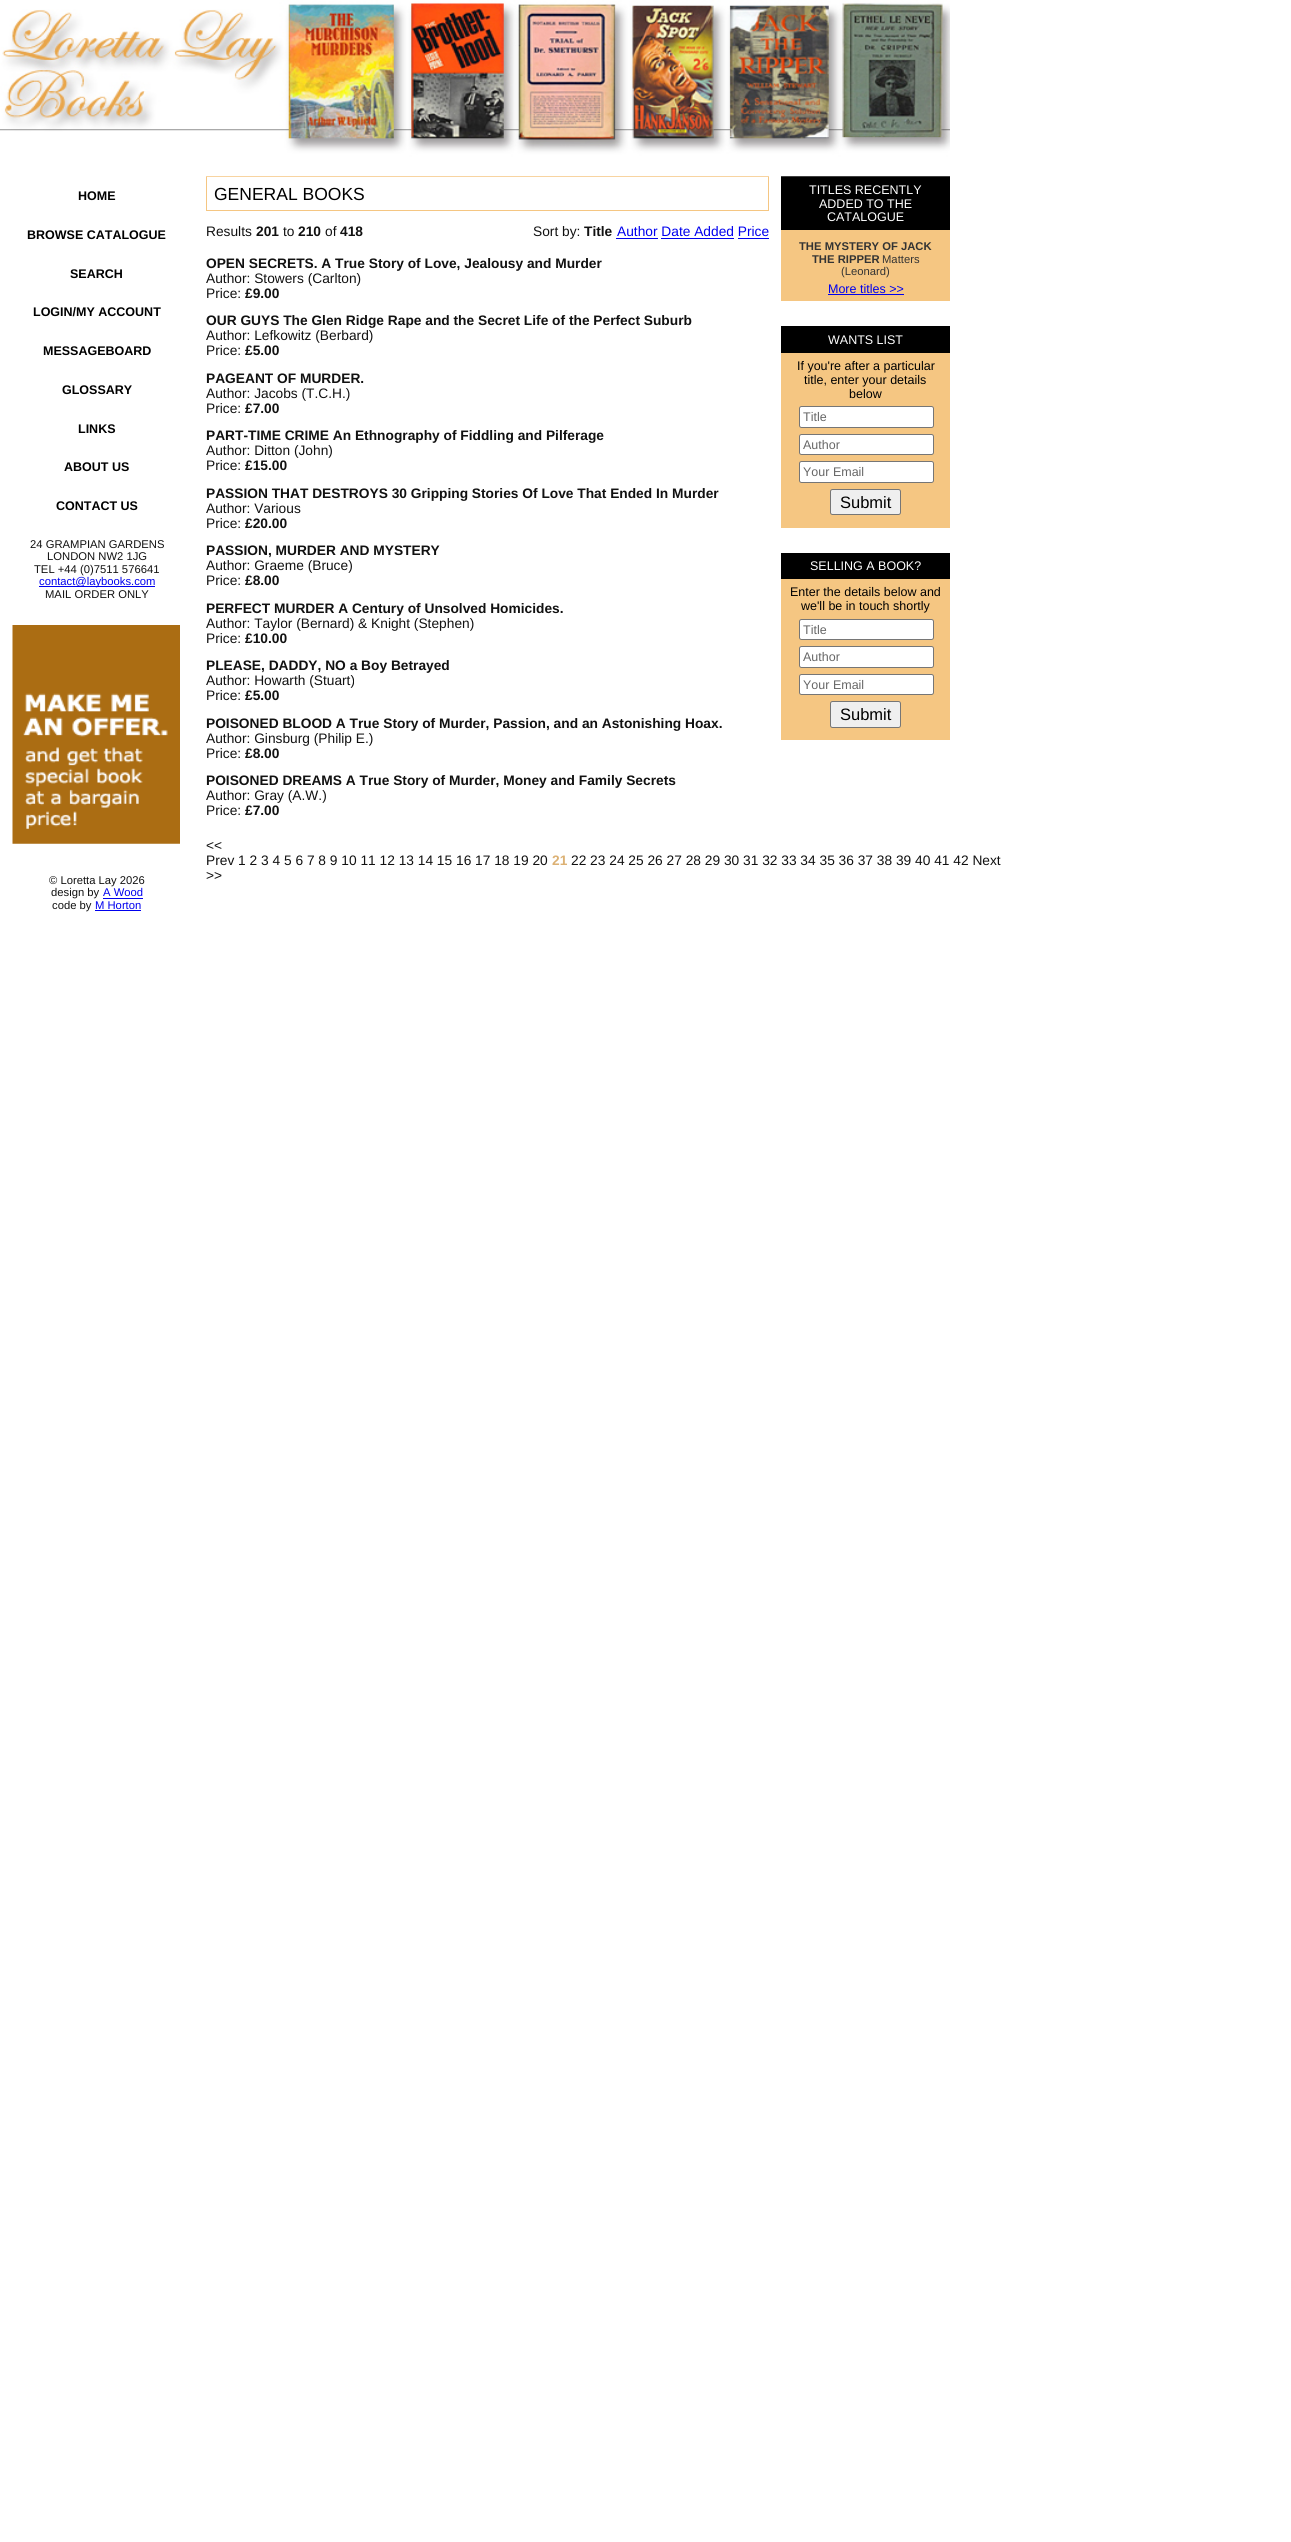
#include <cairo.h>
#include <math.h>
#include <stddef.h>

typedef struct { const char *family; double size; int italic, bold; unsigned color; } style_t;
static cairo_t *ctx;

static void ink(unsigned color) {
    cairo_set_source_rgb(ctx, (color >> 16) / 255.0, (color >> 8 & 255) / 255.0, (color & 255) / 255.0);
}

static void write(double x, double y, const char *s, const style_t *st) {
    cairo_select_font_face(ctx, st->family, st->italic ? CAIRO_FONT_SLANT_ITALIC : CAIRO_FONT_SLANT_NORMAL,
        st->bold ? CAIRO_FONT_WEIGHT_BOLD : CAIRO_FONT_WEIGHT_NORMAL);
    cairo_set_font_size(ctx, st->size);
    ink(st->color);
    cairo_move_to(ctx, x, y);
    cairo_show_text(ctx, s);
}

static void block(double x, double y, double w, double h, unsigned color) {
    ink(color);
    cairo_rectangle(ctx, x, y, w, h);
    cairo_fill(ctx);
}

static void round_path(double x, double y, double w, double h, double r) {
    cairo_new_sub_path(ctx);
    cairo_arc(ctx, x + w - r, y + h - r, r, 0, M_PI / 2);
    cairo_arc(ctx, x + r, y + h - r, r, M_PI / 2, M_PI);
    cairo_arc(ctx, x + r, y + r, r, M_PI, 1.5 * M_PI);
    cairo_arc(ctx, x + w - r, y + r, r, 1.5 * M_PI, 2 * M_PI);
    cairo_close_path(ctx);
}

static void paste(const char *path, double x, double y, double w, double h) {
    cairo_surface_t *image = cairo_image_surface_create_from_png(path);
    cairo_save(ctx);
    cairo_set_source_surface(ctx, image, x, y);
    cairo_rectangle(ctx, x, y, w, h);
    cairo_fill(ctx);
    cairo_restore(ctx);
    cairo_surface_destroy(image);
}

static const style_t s1 = {"Liberation Sans", 12.5, 0, 0, 0xffffff};
static const style_t s2 = {"Liberation Sans", 11.25, 0, 1, 0x333333};
static const style_t s3 = {"Liberation Sans", 11.25, 0, 0, 0x333333};
static const style_t s4 = {"Liberation Sans", 12.5, 0, 0, 0x0000ee};
static const style_t s5 = {"Liberation Sans", 12.5, 0, 0, 0x000000};
static const style_t s6 = {"Liberation Sans", 12.5, 0, 0, 0x666666};
static const style_t s7 = {"Liberation Sans", 16.5, 0, 0, 0x000000};
static const style_t s8 = {"Liberation Sans", 12.5, 0, 1, 0x000000};
static const style_t s9 = {"Liberation Sans", 11.25, 0, 0, 0x111111};
static const style_t s10 = {"Liberation Sans", 11.25, 0, 0, 0x0000ee};
static const style_t s11 = {"Liberation Sans", 17.5, 0, 0, 0x000000};
static const style_t s12 = {"Liberation Sans", 13.75, 0, 0, 0x111111};
static const style_t s13 = {"Liberation Sans", 13.75, 0, 1, 0x111111};
static const style_t s14 = {"Liberation Sans", 13.75, 0, 0, 0x0000ee};
static const style_t s15 = {"Liberation Sans", 13.75, 0, 1, 0xdcb174};

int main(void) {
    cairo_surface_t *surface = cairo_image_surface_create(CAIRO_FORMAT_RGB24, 1291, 2542);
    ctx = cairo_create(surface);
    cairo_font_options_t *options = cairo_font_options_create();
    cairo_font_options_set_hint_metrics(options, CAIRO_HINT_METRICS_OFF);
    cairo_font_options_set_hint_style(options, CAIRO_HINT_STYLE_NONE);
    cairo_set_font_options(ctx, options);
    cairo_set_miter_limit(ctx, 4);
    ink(0xffffff);
    cairo_paint(ctx);
    block(781, 176, 169, 54, 0x000000);
    cairo_rectangle(ctx, 206.5, 176.5, 562, 34);
    ink(0xf5c682);
    cairo_set_line_width(ctx, 1);
    cairo_stroke(ctx);
    paste("pic1.png", 0, 0, 950, 177);
    write(809, 194, "TITLES RECENTLY", &s1);
    write(819, 208, "ADDED TO THE", &s1);
    write(827, 221, "CATALOGUE", &s1);
    block(781, 230, 169, 71, 0xf5c682);
    write(799, 250, "THE MYSTERY OF JACK", &s2);
    write(812, 263, "THE RIPPER", &s2);
    write(882, 263, "Matters", &s3);
    write(841, 275, "(Leonard)", &s3);
    write(828, 293, "More titles >>", &s4);
    block(828, 294, 76, 1, 0x0000ee);
    block(781, 326, 169, 27, 0x000000);
    write(828, 344, "WANTS LIST", &s1);
    block(781, 353, 169, 175, 0xf5c682);
    write(797, 370, "If you're after a particular", &s5);
    write(804, 384, "title, enter your details", &s5);
    write(849, 398, "below", &s5);
    ink(0xffffff);
    round_path(799.5, 406.5, 134, 21, 2);
    cairo_fill_preserve(ctx);
    ink(0x767676);
    cairo_stroke(ctx);
    write(803, 421, "Title", &s6);
    ink(0xffffff);
    round_path(799.5, 434.5, 134, 20, 2);
    cairo_fill_preserve(ctx);
    ink(0x767676);
    cairo_stroke(ctx);
    write(803, 449, "Author", &s6);
    ink(0xffffff);
    round_path(799.5, 461.5, 134, 21, 2);
    cairo_fill_preserve(ctx);
    ink(0x767676);
    cairo_stroke(ctx);
    write(803, 476, "Your Email", &s6);
    ink(0xefefef);
    round_path(830.5, 489.5, 70, 25, 2);
    cairo_fill_preserve(ctx);
    ink(0x767676);
    cairo_stroke(ctx);
    write(840, 508, "Submit", &s7);
    block(781, 553, 169, 26, 0x000000);
    write(810, 570, "SELLING A BOOK?", &s1);
    block(781, 579, 169, 161, 0xf5c682);
    write(790, 596, "Enter the details below and", &s5);
    write(801, 610, "we'll be in touch shortly", &s5);
    ink(0xffffff);
    round_path(799.5, 619.5, 134, 20, 2);
    cairo_fill_preserve(ctx);
    ink(0x767676);
    cairo_stroke(ctx);
    write(803, 634, "Title", &s6);
    ink(0xffffff);
    round_path(799.5, 646.5, 134, 21, 2);
    cairo_fill_preserve(ctx);
    ink(0x767676);
    cairo_stroke(ctx);
    write(803, 661, "Author", &s6);
    ink(0xffffff);
    round_path(799.5, 674.5, 134, 20, 2);
    cairo_fill_preserve(ctx);
    ink(0x767676);
    cairo_stroke(ctx);
    write(803, 689, "Your Email", &s6);
    ink(0xefefef);
    round_path(830.5, 701.5, 70, 26, 2);
    cairo_fill_preserve(ctx);
    ink(0x767676);
    cairo_stroke(ctx);
    write(840, 720, "Submit", &s7);
    write(78, 200, "HOME", &s8);
    write(27, 239, "BROWSE CATALOGUE", &s8);
    write(70, 278, "SEARCH", &s8);
    write(33, 316, "LOGIN/MY ACCOUNT", &s8);
    write(43, 355, "MESSAGEBOARD", &s8);
    write(62, 394, "GLOSSARY", &s8);
    write(78, 433, "LINKS", &s8);
    write(64, 471, "ABOUT US", &s8);
    write(56, 510, "CONTACT US", &s8);
    write(30, 548, "24 GRAMPIAN GARDENS", &s9);
    write(47, 560, "LONDON NW2 1JG", &s9);
    write(34, 573, "TEL +44 (0)7511 576641", &s9);
    block(39, 586, 116, 1, 0x0000ee);
    write(39, 585, "contact@laybooks.com", &s10);
    write(45, 598, "MAIL ORDER ONLY", &s9);
    paste("pic2.png", 12, 625, 168, 219);
    write(49, 884, "© Loretta Lay 2026", &s9);
    write(51, 896, "design by", &s9);
    write(103, 896, "A Wood", &s10);
    block(103, 898, 40, 1, 0x0000ee);
    write(52, 909, "code by", &s9);
    write(95, 909, "M Horton", &s10);
    block(95, 910, 46, 1, 0x0000ee);
    write(214, 200, "GENERAL BOOKS", &s11);
    write(206, 236, "Results", &s12);
    write(256, 236, "201", &s13);
    write(283, 236, "to", &s12);
    write(298, 236, "210", &s13);
    write(325, 236, "of", &s12);
    write(340, 236, "418", &s13);
    write(533, 236, "Sort by:", &s12);
    write(584, 236, "Title", &s13);
    write(617, 236, "Author Date Added Price", &s14);
    block(616, 238, 42, 1, 0x0000ee);
    block(661, 238, 73, 1, 0x0000ee);
    block(738, 238, 31, 1, 0x0000ee);
    write(206, 268, "OPEN SECRETS. A True Story of Love, Jealousy and Murder", &s13);
    write(206, 283, "Author: Stowers (Carlton)", &s12);
    write(206, 298, "Price:", &s12);
    write(245, 298, "£9.00", &s13);
    write(206, 325, "OUR GUYS The Glen Ridge Rape and the Secret Life of the Perfect Suburb", &s13);
    write(206, 340, "Author: Lefkowitz (Berbard)", &s12);
    write(206, 355, "Price:", &s12);
    write(245, 355, "£5.00", &s13);
    write(206, 383, "PAGEANT OF MURDER.", &s13);
    write(206, 398, "Author: Jacobs (T.C.H.)", &s12);
    write(206, 413, "Price:", &s12);
    write(245, 413, "£7.00", &s13);
    write(206, 440, "PART-TIME CRIME An Ethnography of Fiddling and Pilferage", &s13);
    write(206, 455, "Author: Ditton (John)", &s12);
    write(206, 470, "Price:", &s12);
    write(245, 470, "£15.00", &s13);
    write(206, 498, "PASSION THAT DESTROYS 30 Gripping Stories Of Love That Ended In Murder", &s13);
    write(206, 513, "Author: Various", &s12);
    write(206, 528, "Price:", &s12);
    write(245, 528, "£20.00", &s13);
    write(206, 555, "PASSION, MURDER AND MYSTERY", &s13);
    write(206, 570, "Author: Graeme (Bruce)", &s12);
    write(206, 585, "Price:", &s12);
    write(245, 585, "£8.00", &s13);
    write(206, 613, "PERFECT MURDER A Century of Unsolved Homicides.", &s13);
    write(206, 628, "Author: Taylor (Bernard) & Knight (Stephen)", &s12);
    write(206, 643, "Price:", &s12);
    write(245, 643, "£10.00", &s13);
    write(206, 670, "PLEASE, DADDY, NO a Boy Betrayed", &s13);
    write(206, 685, "Author: Howarth (Stuart)", &s12);
    write(206, 700, "Price:", &s12);
    write(245, 700, "£5.00", &s13);
    write(206, 728, "POISONED BLOOD A True Story of Murder, Passion, and an Astonishing Hoax.", &s13);
    write(206, 743, "Author: Ginsburg (Philip E.)", &s12);
    write(206, 758, "Price:", &s12);
    write(245, 758, "£8.00", &s13);
    write(206, 785, "POISONED DREAMS A True Story of Murder, Money and Family Secrets", &s13);
    write(206, 800, "Author: Gray (A.W.)", &s12);
    write(206, 815, "Price:", &s12);
    write(245, 815, "£7.00", &s13);
    write(206, 850, "<<", &s12);
    write(206, 865, "Prev 1 2 3 4 5 6 7 8 9 10 11 12 13 14 15 16 17 18 19 20", &s12);
    write(552, 865, "21", &s15);
    write(571, 865, "22 23 24 25 26 27 28 29 30 31 32 33 34 35 36 37 38 39 40 41 42 Next", &s12);
    write(206, 880, ">>", &s12);
    cairo_surface_write_to_png(surface, "screenshot.png");
    cairo_font_options_destroy(options);
    cairo_destroy(ctx);
    cairo_surface_destroy(surface);
    return 0;
}
